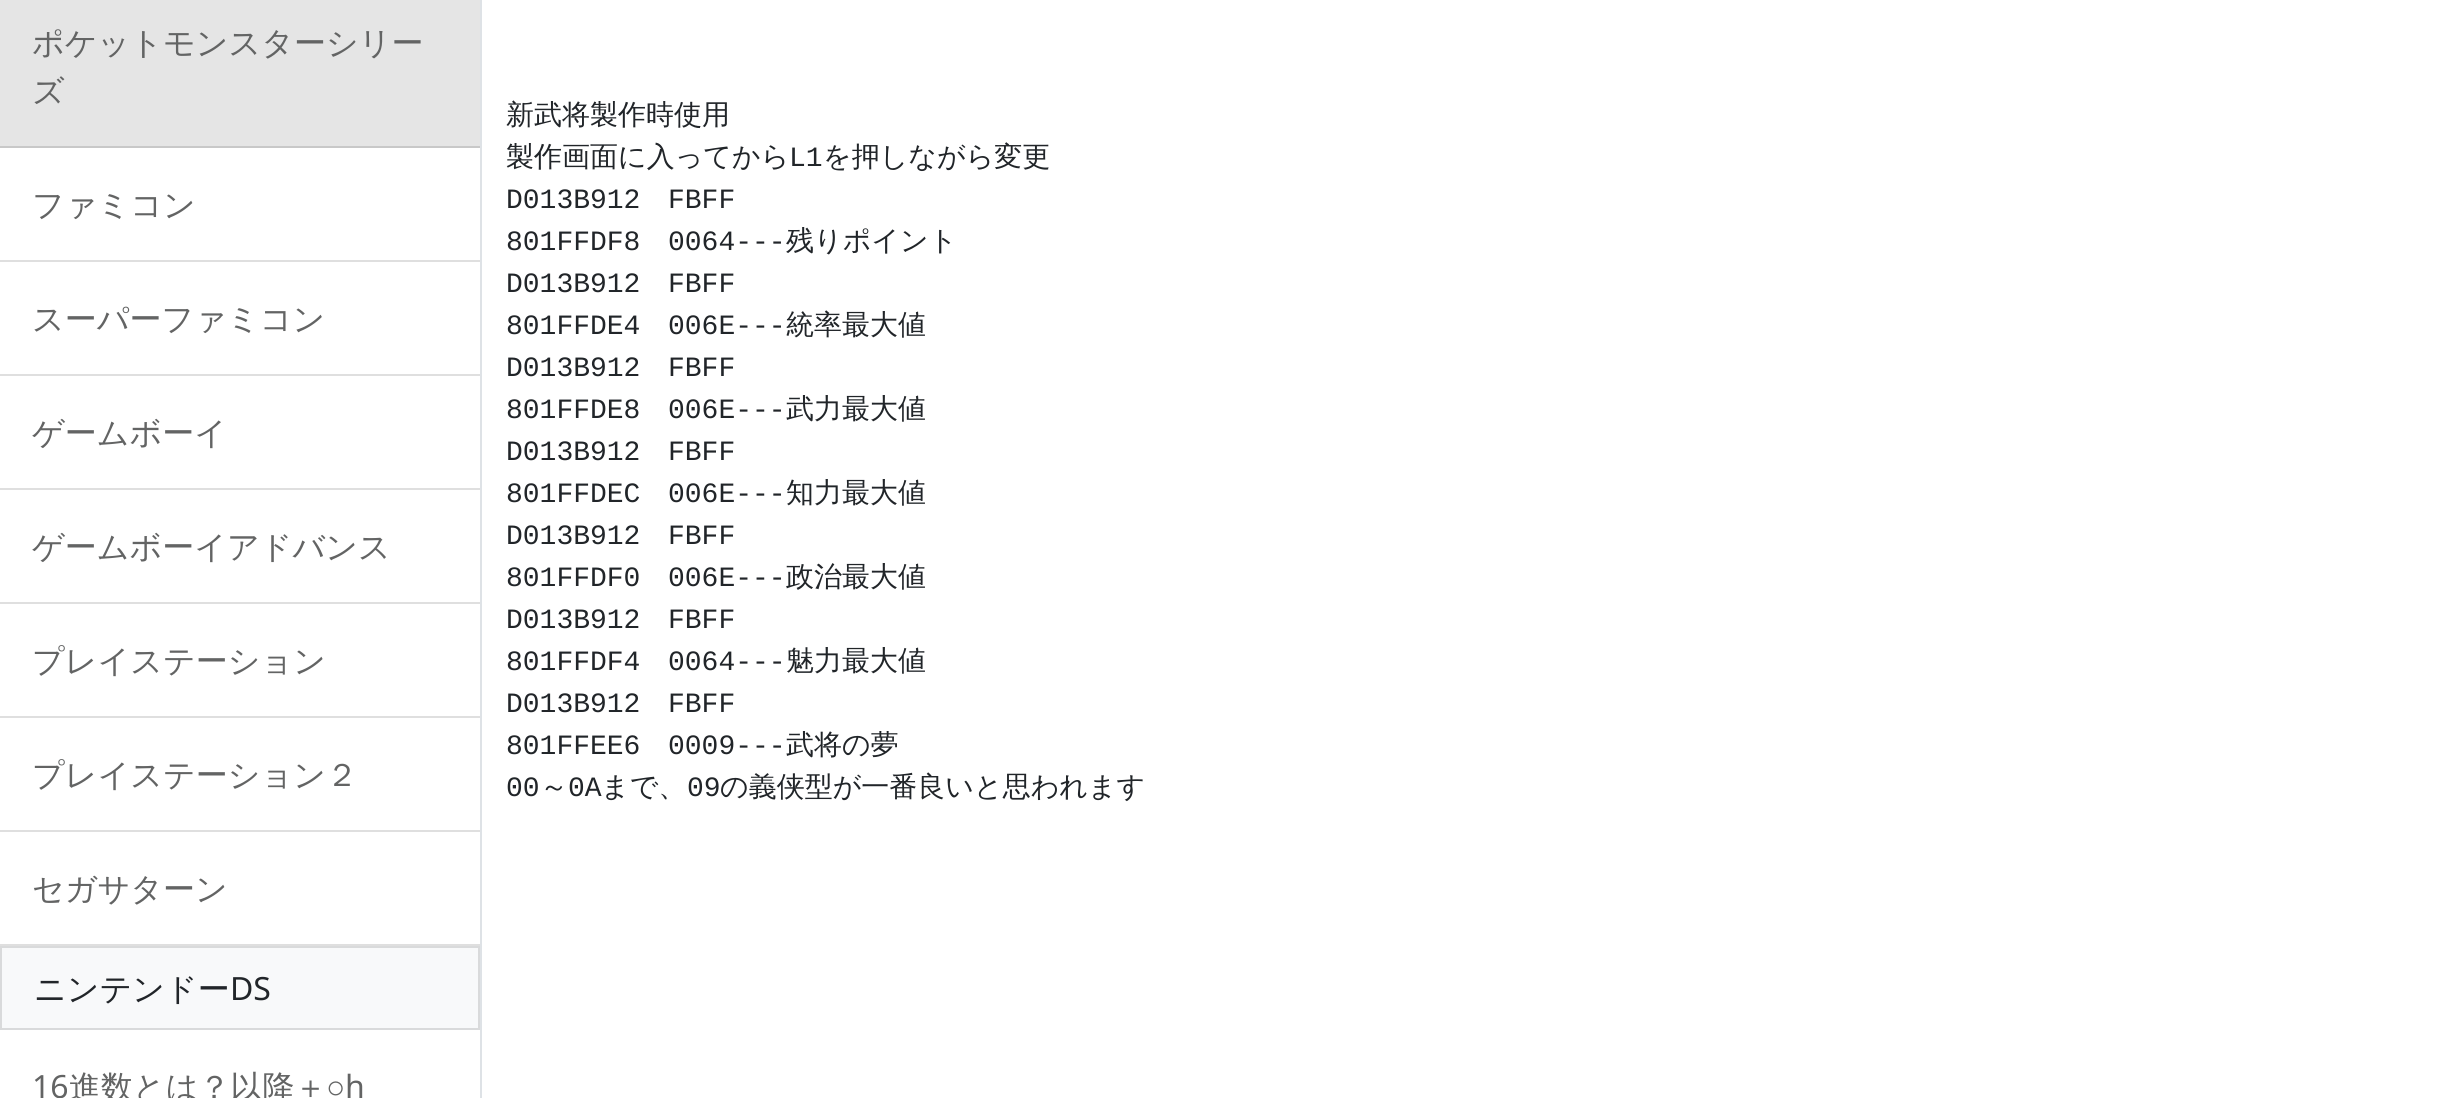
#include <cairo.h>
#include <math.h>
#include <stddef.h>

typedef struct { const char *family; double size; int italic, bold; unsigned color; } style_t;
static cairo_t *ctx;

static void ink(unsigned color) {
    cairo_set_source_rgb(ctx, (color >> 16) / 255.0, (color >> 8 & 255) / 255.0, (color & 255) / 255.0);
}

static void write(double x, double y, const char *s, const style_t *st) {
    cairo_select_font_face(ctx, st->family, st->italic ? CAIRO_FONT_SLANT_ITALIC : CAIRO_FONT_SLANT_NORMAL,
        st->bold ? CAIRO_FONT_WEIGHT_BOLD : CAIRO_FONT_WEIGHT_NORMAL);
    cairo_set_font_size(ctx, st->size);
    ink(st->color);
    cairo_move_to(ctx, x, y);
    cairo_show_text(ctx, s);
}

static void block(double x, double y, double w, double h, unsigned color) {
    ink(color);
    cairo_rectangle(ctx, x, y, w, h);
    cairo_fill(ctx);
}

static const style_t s1 = {"WenQuanYi Zen Hei Medium", 32, 0, 0, 0x636464};
static const style_t s2 = {"WenQuanYi Zen Hei Medium", 32, 0, 0, 0x212529};
static const style_t s3 = {"Noto Sans", 32, 0, 0, 0x212529};
static const style_t s4 = {"Noto Sans", 32, 0, 0, 0x636464};
static const style_t s5 = {"Liberation Sans", 32, 0, 0, 0x636464};
static const style_t s6 = {"WenQuanYi Zen Hei Medium", 28, 0, 0, 0x212529};
static const style_t s7 = {"Liberation Mono", 28, 0, 0, 0x212529};

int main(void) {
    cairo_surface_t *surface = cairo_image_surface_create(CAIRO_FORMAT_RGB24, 2458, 1098);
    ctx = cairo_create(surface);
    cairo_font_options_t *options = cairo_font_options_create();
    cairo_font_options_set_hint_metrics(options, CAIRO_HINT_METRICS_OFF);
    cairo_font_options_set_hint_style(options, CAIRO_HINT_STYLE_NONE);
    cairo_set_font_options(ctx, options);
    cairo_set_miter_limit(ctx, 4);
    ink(0xffffff);
    cairo_paint(ctx);
    block(480, 0, 2, 1098, 0xdee2e6);
    block(0, 0, 480, 146, 0xe5e5e5);
    block(0, 146, 480, 2, 0xc8c8c8);
    write(32, 54, "ポケットモンスターシリー", &s1);
    write(32, 102, "ズ", &s1);
    block(0, 260, 480, 2, 0xdfdfdf);
    write(32, 216, "ファミコン", &s1);
    block(0, 374, 480, 2, 0xdfdfdf);
    write(32, 330, "スーパーファミコン", &s1);
    block(0, 488, 480, 2, 0xdfdfdf);
    write(32, 444, "ゲームボーイ", &s1);
    block(0, 602, 480, 2, 0xdfdfdf);
    write(32, 558, "ゲームボーイアドバンス", &s1);
    block(0, 716, 480, 2, 0xdfdfdf);
    write(32, 672, "プレイステーション", &s1);
    block(0, 830, 480, 2, 0xdfdfdf);
    write(32, 786, "プレイステーション２", &s1);
    block(0, 944, 480, 2, 0xdfdfdf);
    write(32, 900, "セガサターン", &s1);
    ink(0xf8f9fa);
    cairo_rectangle(ctx, 1, 947, 478, 82);
    cairo_fill_preserve(ctx);
    ink(0xd9dadb);
    cairo_stroke(ctx);
    write(34, 1000, "ニンテンドー", &s2);
    write(230, 1000, "DS", &s3);
    write(32, 1098, "16", &s4);
    write(69, 1098, "進数とは？以降＋", &s1);
    write(326, 1098, "○", &s5);
    write(345, 1098, "h", &s4);
    write(506, 124, "新武将製作時使用", &s6);
    write(506, 166, "製作画面に入ってから", &s6);
    write(789, 166, "L1", &s7);
    write(823, 166, "を押しながら変更", &s6);
    write(506, 208, "D013B912", &s7);
    write(668, 208, "FBFF", &s7);
    write(506, 250, "801FFDF8", &s7);
    write(668, 250, "0064---", &s7);
    write(786, 250, "残りポイント", &s6);
    write(506, 292, "D013B912", &s7);
    write(668, 292, "FBFF", &s7);
    write(506, 334, "801FFDE4", &s7);
    write(668, 334, "006E---", &s7);
    write(786, 334, "統率最大値", &s6);
    write(506, 376, "D013B912", &s7);
    write(668, 376, "FBFF", &s7);
    write(506, 418, "801FFDE8", &s7);
    write(668, 418, "006E---", &s7);
    write(786, 418, "武力最大値", &s6);
    write(506, 460, "D013B912", &s7);
    write(668, 460, "FBFF", &s7);
    write(506, 502, "801FFDEC", &s7);
    write(668, 502, "006E---", &s7);
    write(786, 502, "知力最大値", &s6);
    write(506, 544, "D013B912", &s7);
    write(668, 544, "FBFF", &s7);
    write(506, 586, "801FFDF0", &s7);
    write(668, 586, "006E---", &s7);
    write(786, 586, "政治最大値", &s6);
    write(506, 628, "D013B912", &s7);
    write(668, 628, "FBFF", &s7);
    write(506, 670, "801FFDF4", &s7);
    write(668, 670, "0064---", &s7);
    write(786, 670, "魅力最大値", &s6);
    write(506, 712, "D013B912", &s7);
    write(668, 712, "FBFF", &s7);
    write(506, 754, "801FFEE6", &s7);
    write(668, 754, "0009---", &s7);
    write(786, 754, "武将の夢", &s6);
    write(506, 796, "00", &s7);
    write(540, 796, "～", &s6);
    write(568, 796, "0A", &s7);
    write(601, 796, "まで、", &s6);
    write(687, 796, "09", &s7);
    write(720, 796, "の義侠型が一番良いと思われます", &s6);
    cairo_surface_write_to_png(surface, "screenshot.png");
    cairo_font_options_destroy(options);
    cairo_destroy(ctx);
    cairo_surface_destroy(surface);
    return 0;
}
